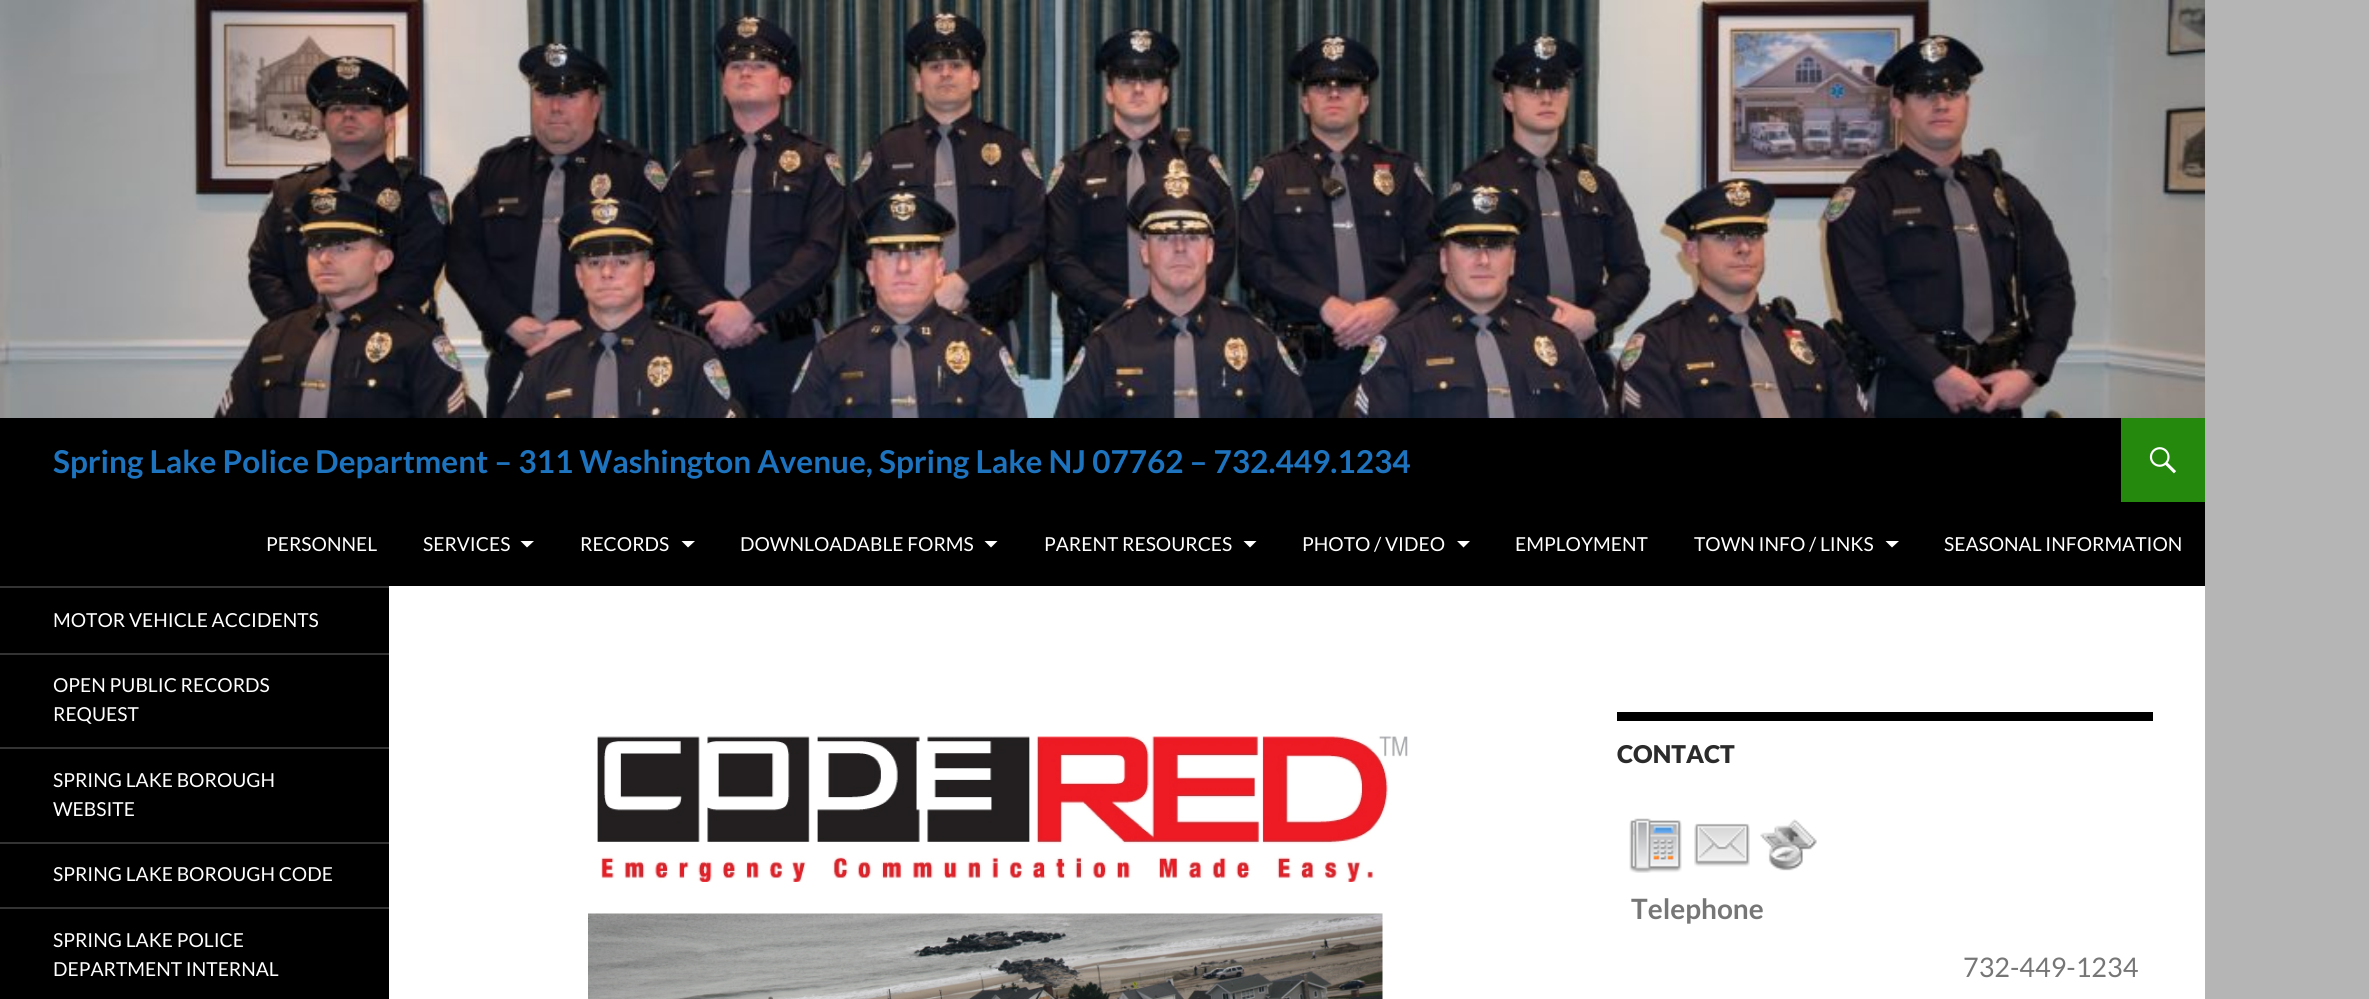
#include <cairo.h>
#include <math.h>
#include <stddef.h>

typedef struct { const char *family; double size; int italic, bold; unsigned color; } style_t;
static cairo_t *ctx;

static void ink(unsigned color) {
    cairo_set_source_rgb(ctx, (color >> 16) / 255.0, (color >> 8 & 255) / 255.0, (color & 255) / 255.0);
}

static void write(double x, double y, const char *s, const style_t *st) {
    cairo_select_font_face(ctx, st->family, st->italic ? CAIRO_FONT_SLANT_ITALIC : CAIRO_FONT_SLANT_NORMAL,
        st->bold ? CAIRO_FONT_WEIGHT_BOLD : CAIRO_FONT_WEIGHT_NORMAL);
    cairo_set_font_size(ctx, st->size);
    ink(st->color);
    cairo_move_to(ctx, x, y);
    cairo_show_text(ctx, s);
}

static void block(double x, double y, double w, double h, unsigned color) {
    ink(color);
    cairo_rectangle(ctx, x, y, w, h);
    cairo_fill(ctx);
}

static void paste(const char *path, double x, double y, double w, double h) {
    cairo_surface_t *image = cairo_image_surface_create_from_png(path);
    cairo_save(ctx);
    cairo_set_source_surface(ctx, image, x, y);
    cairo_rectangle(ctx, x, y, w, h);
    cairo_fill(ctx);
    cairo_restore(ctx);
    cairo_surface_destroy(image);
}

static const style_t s1 = {"Lato", 31.5, 0, 1, 0x1e73be};
static const style_t s2 = {"Lato", 19.25, 0, 0, 0xffffff};
static const style_t s3 = {"Lato Black", 24.5, 0, 0, 0x2b2b2b};
static const style_t s4 = {"Lato", 28, 0, 1, 0x767676};
static const style_t s5 = {"Lato", 27, 0, 0, 0x767676};

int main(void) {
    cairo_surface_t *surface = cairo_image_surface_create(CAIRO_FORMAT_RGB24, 2369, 999);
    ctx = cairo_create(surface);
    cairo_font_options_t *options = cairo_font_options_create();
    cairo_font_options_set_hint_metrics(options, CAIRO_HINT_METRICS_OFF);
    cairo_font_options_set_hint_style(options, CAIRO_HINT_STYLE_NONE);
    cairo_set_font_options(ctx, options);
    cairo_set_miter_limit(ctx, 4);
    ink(0xb5b5b5);
    cairo_paint(ctx);
    block(389, 586, 1816, 413, 0xffffff);
    paste("pic1.png", 0, 0, 2205, 418);
    block(0, 418, 2205, 168, 0x000000);
    write(53, 473, "Spring Lake Police Department – 311 Washington Avenue, Spring Lake NJ 07762 – 732.449.1234", &s1);
    block(2121, 418, 84, 84, 0x24890d);
    paste("pic2.png", 2149, 447, 27, 27);
    write(266, 551, "PERSONNEL", &s2);
    write(423, 551, "SERVICES", &s2);
    cairo_new_path(ctx);
    cairo_move_to(ctx, 520.5, 541);
    cairo_line_to(ctx, 527, 547.5);
    cairo_line_to(ctx, 534, 541);
    cairo_close_path(ctx);
    cairo_fill(ctx);
    write(580, 551, "RECORDS", &s2);
    cairo_new_path(ctx);
    cairo_move_to(ctx, 681.5, 541);
    cairo_line_to(ctx, 688, 547.5);
    cairo_line_to(ctx, 695, 541);
    cairo_close_path(ctx);
    cairo_fill(ctx);
    write(740, 551, "DOWNLOADABLE FORMS", &s2);
    cairo_new_path(ctx);
    cairo_move_to(ctx, 984.5, 541);
    cairo_line_to(ctx, 991, 547.5);
    cairo_line_to(ctx, 997.5, 541);
    cairo_close_path(ctx);
    cairo_fill(ctx);
    write(1044, 551, "PARENT RESOURCES", &s2);
    cairo_new_path(ctx);
    cairo_move_to(ctx, 1243.5, 541);
    cairo_line_to(ctx, 1250, 547.5);
    cairo_line_to(ctx, 1256.5, 541);
    cairo_close_path(ctx);
    cairo_fill(ctx);
    write(1302, 551, "PHOTO / VIDEO", &s2);
    cairo_new_path(ctx);
    cairo_move_to(ctx, 1457, 541);
    cairo_line_to(ctx, 1463.5, 547.5);
    cairo_line_to(ctx, 1470, 541);
    cairo_close_path(ctx);
    cairo_fill(ctx);
    write(1515, 551, "EMPLOYMENT", &s2);
    write(1694, 551, "TOWN INFO / LINKS", &s2);
    cairo_new_path(ctx);
    cairo_move_to(ctx, 1885.5, 541);
    cairo_line_to(ctx, 1892, 547.5);
    cairo_line_to(ctx, 1899, 541);
    cairo_close_path(ctx);
    cairo_fill(ctx);
    write(1944, 551, "SEASONAL INFORMATION", &s2);
    block(0, 588, 389, 411, 0x000000);
    block(0, 586, 389, 2, 0x333333);
    write(53, 627, "MOTOR VEHICLE ACCIDENTS", &s2);
    block(0, 653, 389, 2, 0x333333);
    write(53, 692, "OPEN PUBLIC RECORDS", &s2);
    write(53, 721, "REQUEST", &s2);
    block(0, 747, 389, 2, 0x333333);
    write(53, 787, "SPRING LAKE BOROUGH", &s2);
    write(53, 816, "WEBSITE", &s2);
    block(0, 842, 389, 2, 0x333333);
    write(53, 881, "SPRING LAKE BOROUGH CODE", &s2);
    block(0, 907, 389, 2, 0x333333);
    write(53, 947, "SPRING LAKE POLICE", &s2);
    write(53, 976, "DEPARTMENT INTERNAL", &s2);
    paste("pic3.png", 597, 736, 811, 146);
    paste("pic4.png", 588, 913, 795, 86);
    block(1617, 712, 536, 9, 0x000000);
    write(1617, 763, "CONTACT", &s3);
    paste("pic5.png", 1629, 818, 53, 55);
    paste("pic6.png", 1694, 823, 56, 44);
    paste("pic7.png", 1760, 819, 57, 52);
    write(1631, 919, "Telephone", &s4);
    write(1963, 977, "732-449-1234", &s5);
    cairo_surface_write_to_png(surface, "screenshot.png");
    cairo_font_options_destroy(options);
    cairo_destroy(ctx);
    cairo_surface_destroy(surface);
    return 0;
}
